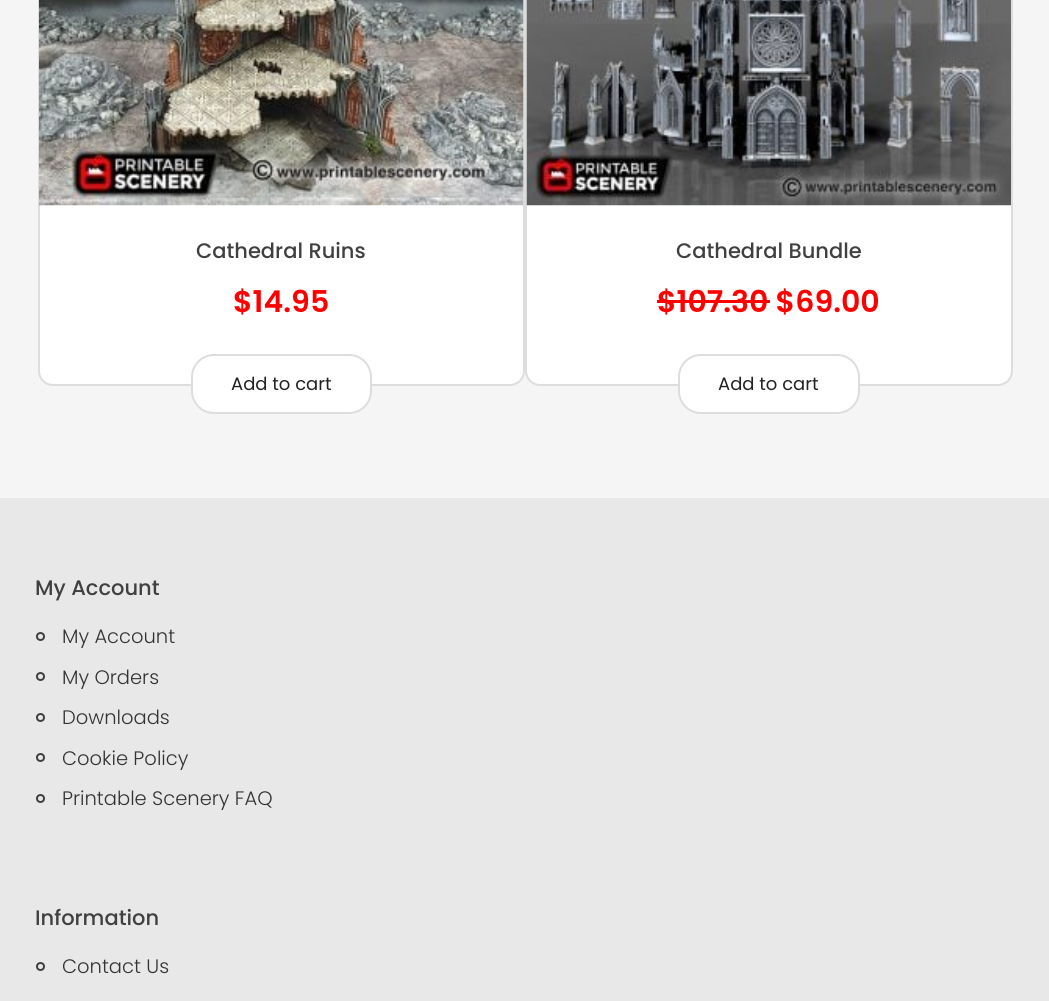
#include <cairo.h>
#include <math.h>
#include <stddef.h>

typedef struct { const char *family; double size; int italic, bold; unsigned color; } style_t;
static cairo_t *ctx;

static void ink(unsigned color) {
    cairo_set_source_rgb(ctx, (color >> 16) / 255.0, (color >> 8 & 255) / 255.0, (color & 255) / 255.0);
}

static void write(double x, double y, const char *s, const style_t *st) {
    cairo_select_font_face(ctx, st->family, st->italic ? CAIRO_FONT_SLANT_ITALIC : CAIRO_FONT_SLANT_NORMAL,
        st->bold ? CAIRO_FONT_WEIGHT_BOLD : CAIRO_FONT_WEIGHT_NORMAL);
    cairo_set_font_size(ctx, st->size);
    ink(st->color);
    cairo_move_to(ctx, x, y);
    cairo_show_text(ctx, s);
}

static void block(double x, double y, double w, double h, unsigned color) {
    ink(color);
    cairo_rectangle(ctx, x, y, w, h);
    cairo_fill(ctx);
}

static void round_path(double x, double y, double w, double h, double r) {
    cairo_new_sub_path(ctx);
    cairo_arc(ctx, x + w - r, y + h - r, r, 0, M_PI / 2);
    cairo_arc(ctx, x + r, y + h - r, r, M_PI / 2, M_PI);
    cairo_arc(ctx, x + r, y + r, r, M_PI, 1.5 * M_PI);
    cairo_arc(ctx, x + w - r, y + r, r, 1.5 * M_PI, 2 * M_PI);
    cairo_close_path(ctx);
}

static void paste(const char *path, double x, double y, double w, double h) {
    cairo_surface_t *image = cairo_image_surface_create_from_png(path);
    cairo_save(ctx);
    cairo_set_source_surface(ctx, image, x, y);
    cairo_rectangle(ctx, x, y, w, h);
    cairo_fill(ctx);
    cairo_restore(ctx);
    cairo_surface_destroy(image);
}

static const style_t s1 = {"Poppins Medium", 21, 0, 0, 0x404040};
static const style_t s2 = {"Poppins SemiBold", 30, 0, 0, 0xff0000};
static const style_t s3 = {"Poppins", 18, 0, 0, 0x222222};
static const style_t s4 = {"Poppins Light", 19.5, 0, 0, 0x333333};

int main(void) {
    cairo_surface_t *surface = cairo_image_surface_create(CAIRO_FORMAT_RGB24, 1049, 1001);
    ctx = cairo_create(surface);
    cairo_font_options_t *options = cairo_font_options_create();
    cairo_font_options_set_hint_metrics(options, CAIRO_HINT_METRICS_OFF);
    cairo_font_options_set_hint_style(options, CAIRO_HINT_STYLE_NONE);
    cairo_set_font_options(ctx, options);
    cairo_set_miter_limit(ctx, 4);
    ink(0xf5f5f5);
    cairo_paint(ctx);
    ink(0xffffff);
    round_path(39, -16, 485, 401, 14);
    cairo_fill_preserve(ctx);
    ink(0xdddddd);
    cairo_stroke(ctx);
    paste("pic1.png", 39, 0, 485, 206);
    write(196, 258, "Cathedral Ruins", &s1);
    write(233, 312, "$14.95", &s2);
    ink(0xffffff);
    round_path(192, 355, 179, 58, 22);
    cairo_fill_preserve(ctx);
    ink(0xdddddd);
    cairo_stroke(ctx);
    write(231, 390, "Add to cart", &s3);
    ink(0xffffff);
    round_path(526, -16, 486, 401, 14);
    cairo_fill_preserve(ctx);
    ink(0xdddddd);
    cairo_stroke(ctx);
    paste("pic2.png", 526, 0, 485, 206);
    write(676, 258, "Cathedral Bundle", &s1);
    write(657, 312, "$107.30 $69.00", &s2);
    block(657, 300, 113, 3, 0xff0000);
    ink(0xffffff);
    round_path(679, 355, 180, 58, 22);
    cairo_fill_preserve(ctx);
    ink(0xdddddd);
    cairo_stroke(ctx);
    write(718, 390, "Add to cart", &s3);
    block(0, 498, 1049, 503, 0xe8e8e8);
    write(35, 595, "My Account", &s1);
    cairo_new_path(ctx);
    cairo_arc(ctx, 40.5, 636.5, 3.5, 0, 2 * M_PI);
    cairo_stroke(ctx);
    write(62, 643, "My Account", &s4);
    cairo_new_path(ctx);
    cairo_arc(ctx, 40.5, 676.5, 3.5, 0, 2 * M_PI);
    ink(0x404040);
    cairo_stroke(ctx);
    write(62, 684, "My Orders", &s4);
    cairo_new_path(ctx);
    cairo_arc(ctx, 40.5, 717.5, 3.5, 0, 2 * M_PI);
    ink(0x404040);
    cairo_stroke(ctx);
    write(62, 724, "Downloads", &s4);
    cairo_new_path(ctx);
    cairo_arc(ctx, 40.5, 757.5, 3.5, 0, 2 * M_PI);
    ink(0x404040);
    cairo_stroke(ctx);
    write(62, 765, "Cookie Policy", &s4);
    cairo_new_path(ctx);
    cairo_arc(ctx, 40.5, 798.5, 3.5, 0, 2 * M_PI);
    ink(0x404040);
    cairo_stroke(ctx);
    write(62, 805, "Printable Scenery FAQ", &s4);
    write(35, 925, "Information", &s1);
    cairo_new_path(ctx);
    cairo_arc(ctx, 40.5, 966.5, 3.5, 0, 2 * M_PI);
    cairo_stroke(ctx);
    write(62, 973, "Contact Us", &s4);
    cairo_surface_write_to_png(surface, "screenshot.png");
    cairo_font_options_destroy(options);
    cairo_destroy(ctx);
    cairo_surface_destroy(surface);
    return 0;
}
